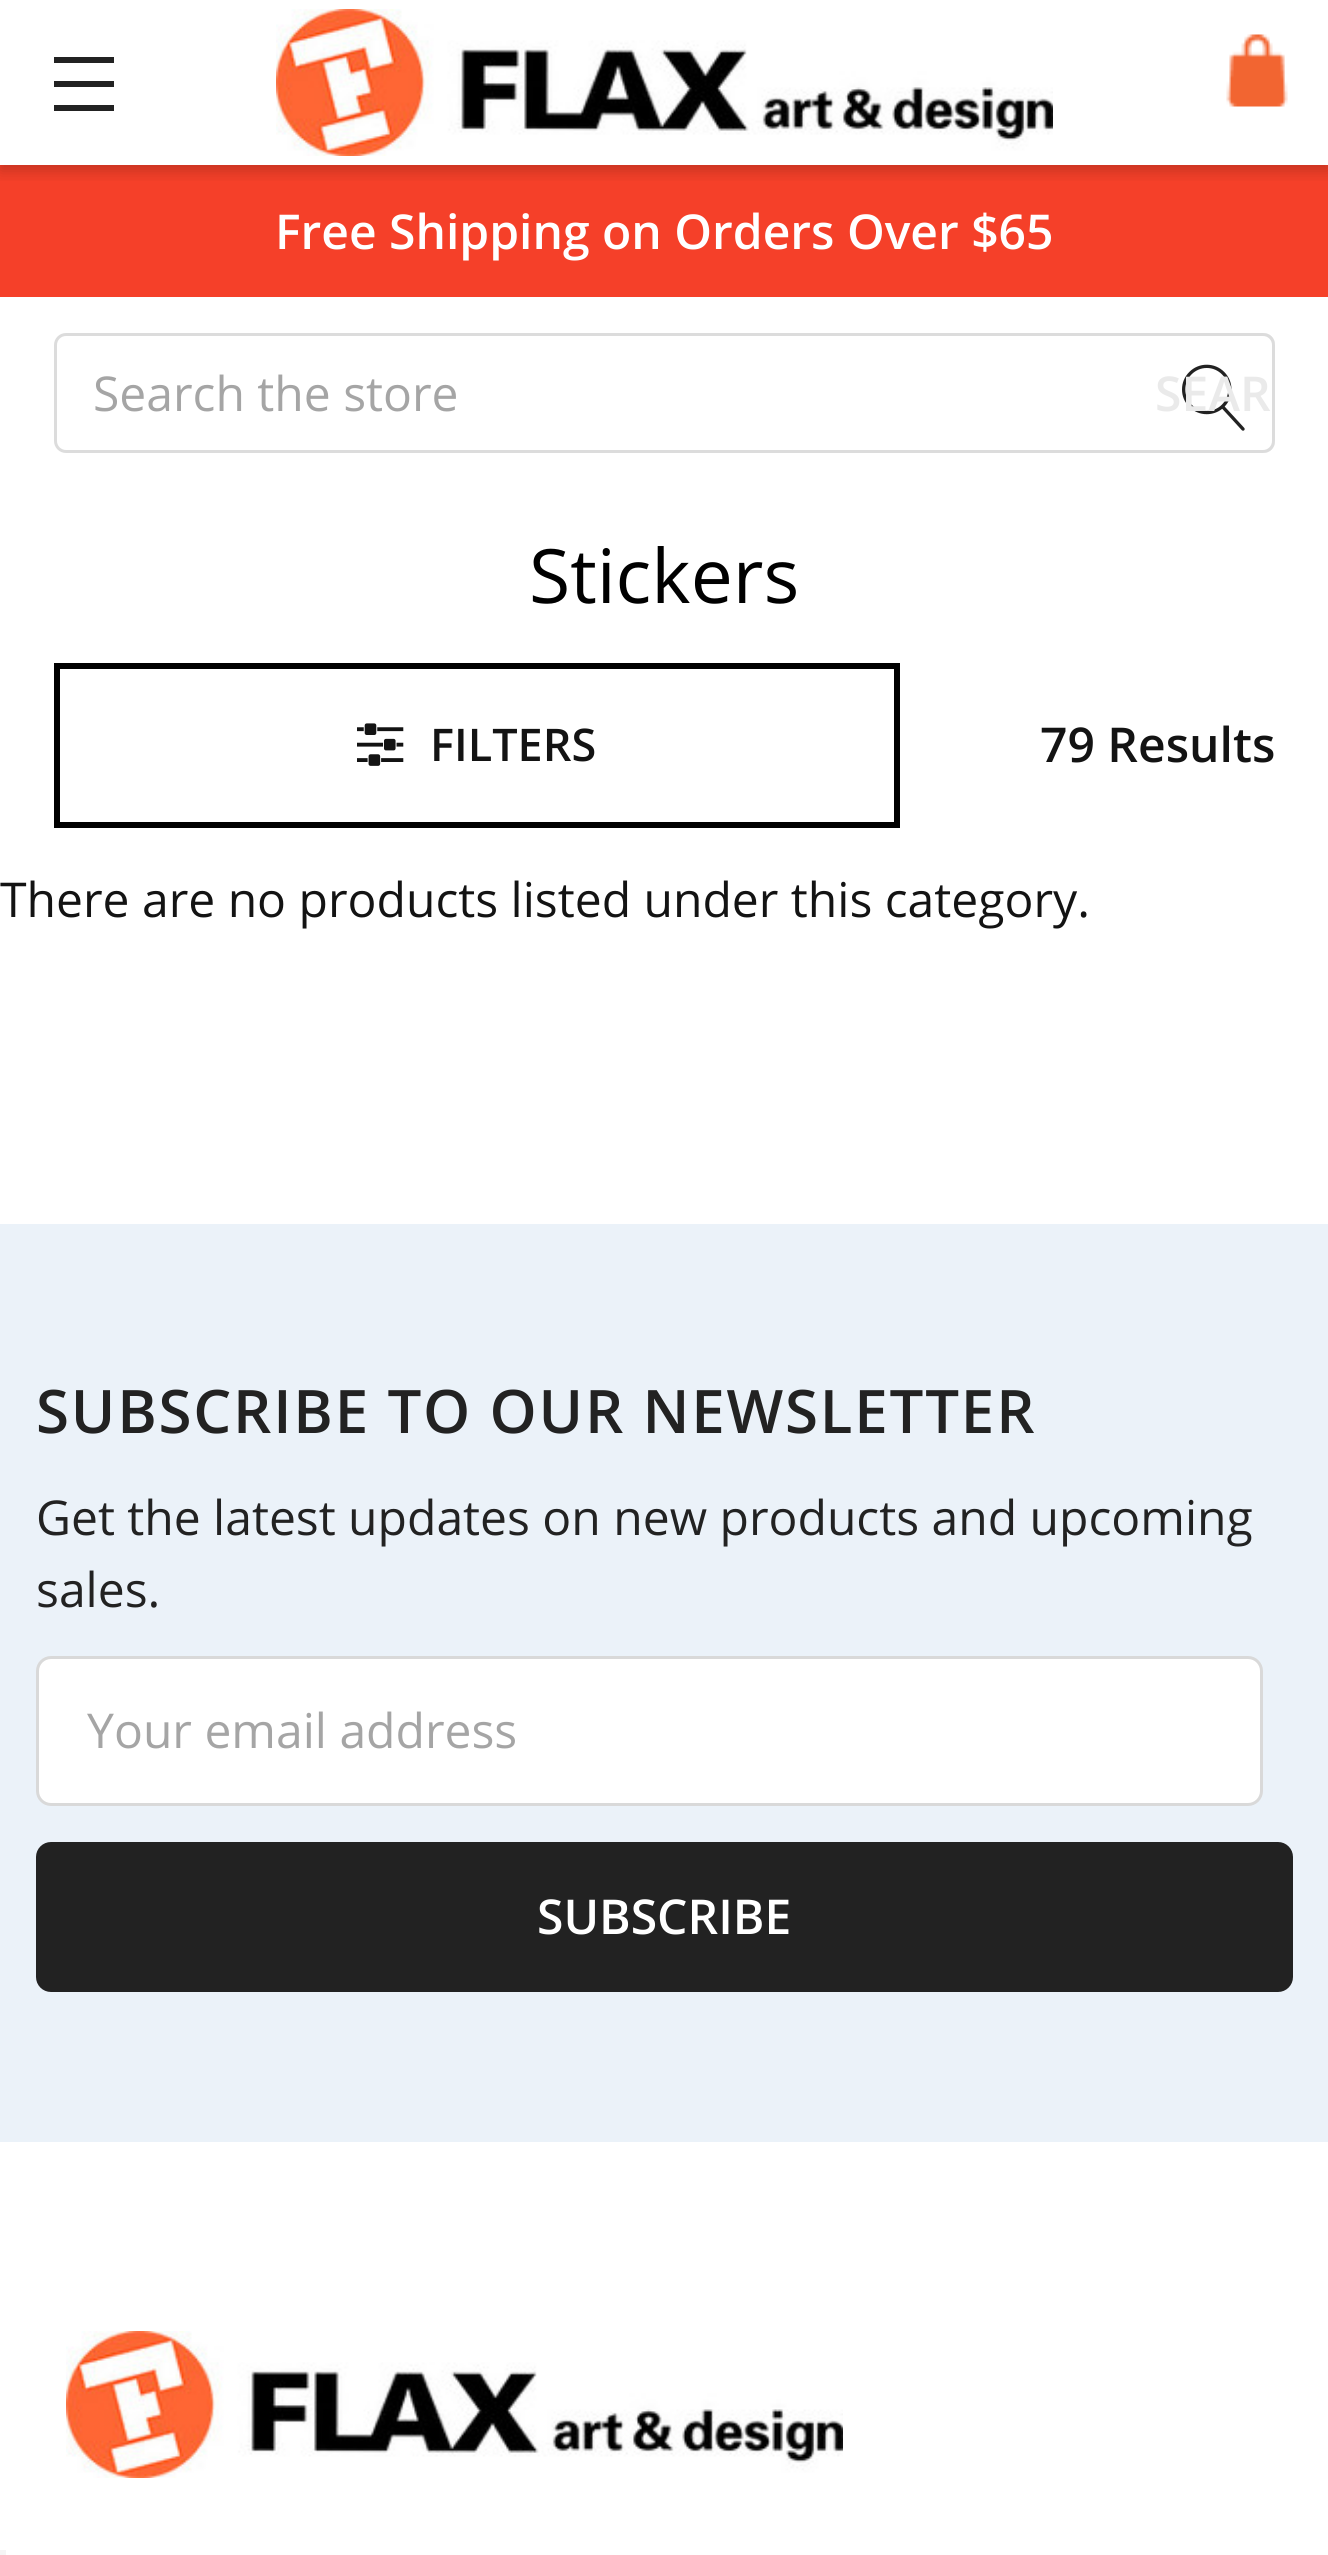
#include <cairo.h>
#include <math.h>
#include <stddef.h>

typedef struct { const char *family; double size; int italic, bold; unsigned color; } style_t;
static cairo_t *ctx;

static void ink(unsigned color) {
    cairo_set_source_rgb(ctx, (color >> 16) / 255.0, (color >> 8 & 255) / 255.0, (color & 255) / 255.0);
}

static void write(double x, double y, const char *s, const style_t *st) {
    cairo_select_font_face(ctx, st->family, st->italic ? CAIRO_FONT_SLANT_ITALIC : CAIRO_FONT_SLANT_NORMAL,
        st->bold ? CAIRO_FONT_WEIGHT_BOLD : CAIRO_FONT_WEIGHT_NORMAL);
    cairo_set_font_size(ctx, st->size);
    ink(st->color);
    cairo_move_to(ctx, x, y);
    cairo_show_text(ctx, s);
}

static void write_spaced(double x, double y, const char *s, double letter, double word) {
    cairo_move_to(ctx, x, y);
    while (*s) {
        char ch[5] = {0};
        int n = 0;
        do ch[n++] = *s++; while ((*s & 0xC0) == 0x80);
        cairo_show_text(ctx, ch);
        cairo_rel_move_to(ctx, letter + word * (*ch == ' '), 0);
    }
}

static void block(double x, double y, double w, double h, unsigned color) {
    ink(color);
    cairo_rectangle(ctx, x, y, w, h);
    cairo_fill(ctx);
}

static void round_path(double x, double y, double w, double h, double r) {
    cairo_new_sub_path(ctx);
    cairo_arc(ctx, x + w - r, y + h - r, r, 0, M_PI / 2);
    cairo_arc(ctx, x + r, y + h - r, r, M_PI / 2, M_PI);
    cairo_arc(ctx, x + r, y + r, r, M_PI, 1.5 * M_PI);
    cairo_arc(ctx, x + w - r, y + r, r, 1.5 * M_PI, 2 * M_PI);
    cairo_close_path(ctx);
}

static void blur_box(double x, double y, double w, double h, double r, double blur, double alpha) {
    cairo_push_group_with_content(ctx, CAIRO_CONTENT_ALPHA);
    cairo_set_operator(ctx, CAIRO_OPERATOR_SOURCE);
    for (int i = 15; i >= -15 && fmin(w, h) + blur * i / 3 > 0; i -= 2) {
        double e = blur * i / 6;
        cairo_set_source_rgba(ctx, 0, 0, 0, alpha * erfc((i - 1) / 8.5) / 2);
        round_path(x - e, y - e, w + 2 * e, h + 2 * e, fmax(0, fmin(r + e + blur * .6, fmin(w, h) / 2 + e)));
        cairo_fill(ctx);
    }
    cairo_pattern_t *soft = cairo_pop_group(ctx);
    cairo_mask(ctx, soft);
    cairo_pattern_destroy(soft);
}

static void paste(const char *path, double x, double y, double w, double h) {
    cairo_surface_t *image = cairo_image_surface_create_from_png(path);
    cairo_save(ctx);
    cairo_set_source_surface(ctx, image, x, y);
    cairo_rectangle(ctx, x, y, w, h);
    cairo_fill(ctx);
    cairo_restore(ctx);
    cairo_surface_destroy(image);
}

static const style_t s1 = {"Open Sans SemiBold", 48, 0, 0, 0xffffff};
static const style_t s2 = {"Open Sans", 48, 0, 0, 0xa5a5a5};
static const style_t s3 = {"Open Sans SemiBold", 48, 0, 0, 0xeaeaea};
static const style_t s4 = {"Open Sans", 75, 0, 0, 0x000000};
static const style_t s5 = {"Open Sans SemiBold", 45, 0, 0, 0x131313};
static const style_t s6 = {"Open Sans SemiBold", 48, 0, 0, 0x131313};
static const style_t s7 = {"Open Sans", 48, 0, 0, 0x131313};
static const style_t s8 = {"Open Sans", 48, 0, 0, 0x222222};

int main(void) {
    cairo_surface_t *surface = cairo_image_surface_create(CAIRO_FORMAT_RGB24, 1328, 2555);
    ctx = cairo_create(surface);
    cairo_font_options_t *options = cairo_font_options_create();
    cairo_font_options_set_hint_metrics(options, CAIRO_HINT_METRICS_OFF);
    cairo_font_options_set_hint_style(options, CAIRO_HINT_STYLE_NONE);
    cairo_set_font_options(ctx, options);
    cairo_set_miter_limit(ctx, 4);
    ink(0xffffff);
    cairo_paint(ctx);
    block(0, 165, 1328, 132, 0xf54029);
    cairo_save(ctx);
    cairo_rectangle(ctx, 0, 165, 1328, 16);
    cairo_clip(ctx);
    ink(0x000000);
    blur_box(0, 6, 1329, 165, 0, 7.5, 0.2);
    cairo_restore(ctx);
    block(54, 81, 60, 6, 0x222222);
    block(54, 57, 60, 6, 0x222222);
    block(54, 105, 60, 6, 0x222222);
    paste("pic1.png", 276, 9, 777, 147);
    paste("pic2.png", 1226, 34, 62, 73);
    write(275, 249, "Free Shipping on Orders Over $65", &s1);
    round_path(55.5, 334.5, 1218, 117, 10.5);
    ink(0xdcdcdc);
    cairo_set_line_width(ctx, 3);
    cairo_stroke(ctx);
    ink(0xffffff);
    cairo_new_path(ctx);
    cairo_move_to(ctx, 1155, 333);
    cairo_line_to(ctx, 1263, 333);
    cairo_curve_to(ctx, 1269.5, 333, 1275, 338.5, 1275, 345);
    cairo_line_to(ctx, 1275, 441);
    cairo_curve_to(ctx, 1275, 447.5, 1269.5, 453, 1263, 453);
    cairo_line_to(ctx, 1155, 453);
    cairo_close_path(ctx);
    cairo_fill(ctx);
    ink(0xdcdcdc);
    cairo_set_fill_rule(ctx, CAIRO_FILL_RULE_EVEN_ODD);
    cairo_new_path(ctx);
    cairo_move_to(ctx, 1155, 333);
    cairo_line_to(ctx, 1263, 333);
    cairo_curve_to(ctx, 1270, 333, 1275, 338, 1275, 345);
    cairo_line_to(ctx, 1275, 441);
    cairo_curve_to(ctx, 1275, 448, 1270, 453, 1263, 453);
    cairo_line_to(ctx, 1155, 453);
    cairo_close_path(ctx);
    cairo_move_to(ctx, 1155, 336);
    cairo_line_to(ctx, 1263, 336);
    cairo_curve_to(ctx, 1268, 336, 1272, 340, 1272, 345);
    cairo_line_to(ctx, 1272, 441);
    cairo_curve_to(ctx, 1272, 446, 1268, 450, 1263, 450);
    cairo_line_to(ctx, 1155, 450);
    cairo_close_path(ctx);
    cairo_fill(ctx);
    paste("pic3.png", 1182, 364, 63, 67);
    write(93, 411, "Search the store", &s2);
    write(1155, 411, "SEAR", &s3);
    write(529, 603, "Stickers", &s4);
    cairo_rectangle(ctx, 57, 666, 840, 159);
    cairo_set_line_width(ctx, 6);
    cairo_stroke(ctx);
    paste("pic4.png", 357, 723, 47, 43);
    write(430, 761, "FILTERS", &s5);
    write(1040, 762, "79 Results", &s6);
    write(0, 917, "There are no products listed under this category.", &s7);
    block(0, 1224, 1328, 918, 0xebf2f9);
    cairo_select_font_face(ctx, "Open Sans SemiBold", CAIRO_FONT_SLANT_NORMAL, CAIRO_FONT_WEIGHT_NORMAL);
    cairo_set_font_size(ctx, 60);
    ink(0x222222);
    write_spaced(36, 1433, "SUBSCRIBE TO OUR NEWSLETTER", 1.8, 0);
    write(36, 1535, "Get the latest updates on new products and upcoming", &s8);
    write(36, 1607, "sales.", &s8);
    ink(0xffffff);
    round_path(37.5, 1657.5, 1224, 147, 13.5);
    cairo_fill_preserve(ctx);
    ink(0xd9d9d9);
    cairo_set_line_width(ctx, 3);
    cairo_stroke(ctx);
    write(87, 1748, "Your email address", &s2);
    ink(0x222222);
    round_path(37.5, 1843.5, 1254, 147, 13.5);
    cairo_fill_preserve(ctx);
    cairo_stroke(ctx);
    write(537, 1934, "SUBSCRIBE", &s1);
    paste("pic1.png", 66, 2331, 777, 147);
    block(0, 2550, 6, 5, 0xf5f5f5);
    cairo_surface_write_to_png(surface, "screenshot.png");
    cairo_font_options_destroy(options);
    cairo_destroy(ctx);
    cairo_surface_destroy(surface);
    return 0;
}
